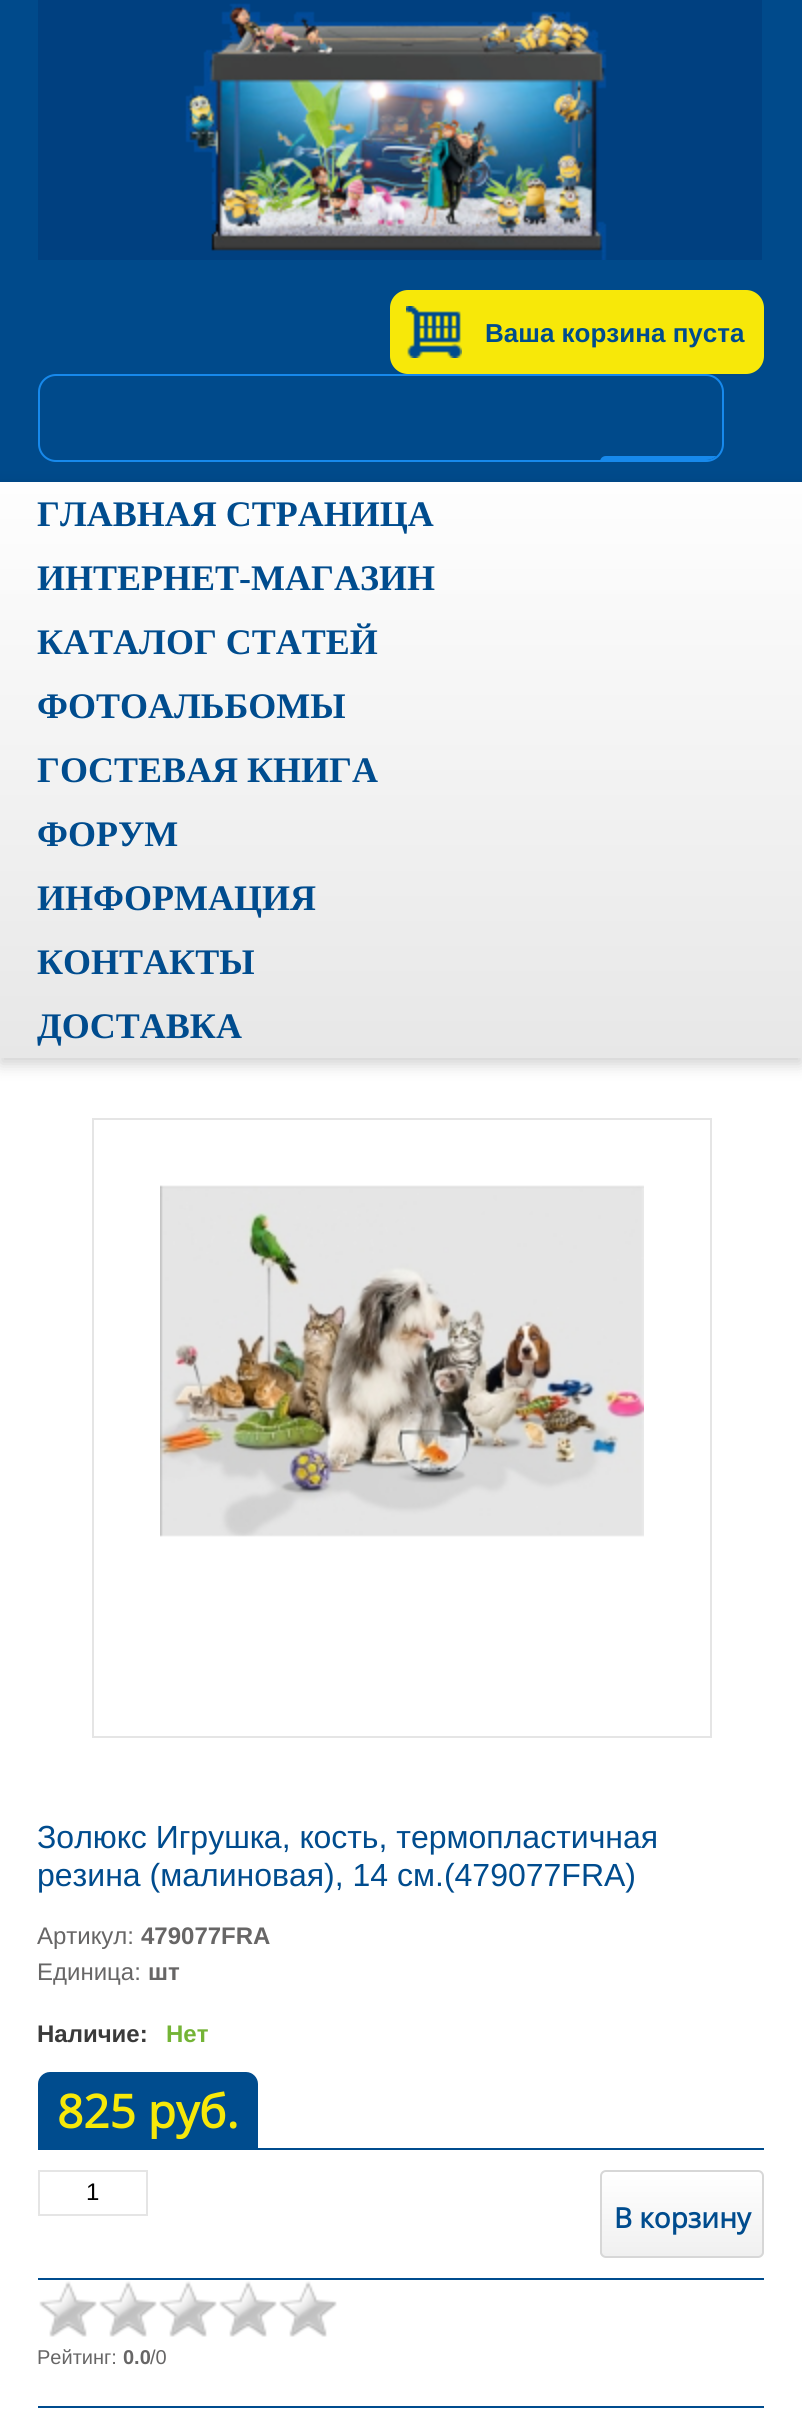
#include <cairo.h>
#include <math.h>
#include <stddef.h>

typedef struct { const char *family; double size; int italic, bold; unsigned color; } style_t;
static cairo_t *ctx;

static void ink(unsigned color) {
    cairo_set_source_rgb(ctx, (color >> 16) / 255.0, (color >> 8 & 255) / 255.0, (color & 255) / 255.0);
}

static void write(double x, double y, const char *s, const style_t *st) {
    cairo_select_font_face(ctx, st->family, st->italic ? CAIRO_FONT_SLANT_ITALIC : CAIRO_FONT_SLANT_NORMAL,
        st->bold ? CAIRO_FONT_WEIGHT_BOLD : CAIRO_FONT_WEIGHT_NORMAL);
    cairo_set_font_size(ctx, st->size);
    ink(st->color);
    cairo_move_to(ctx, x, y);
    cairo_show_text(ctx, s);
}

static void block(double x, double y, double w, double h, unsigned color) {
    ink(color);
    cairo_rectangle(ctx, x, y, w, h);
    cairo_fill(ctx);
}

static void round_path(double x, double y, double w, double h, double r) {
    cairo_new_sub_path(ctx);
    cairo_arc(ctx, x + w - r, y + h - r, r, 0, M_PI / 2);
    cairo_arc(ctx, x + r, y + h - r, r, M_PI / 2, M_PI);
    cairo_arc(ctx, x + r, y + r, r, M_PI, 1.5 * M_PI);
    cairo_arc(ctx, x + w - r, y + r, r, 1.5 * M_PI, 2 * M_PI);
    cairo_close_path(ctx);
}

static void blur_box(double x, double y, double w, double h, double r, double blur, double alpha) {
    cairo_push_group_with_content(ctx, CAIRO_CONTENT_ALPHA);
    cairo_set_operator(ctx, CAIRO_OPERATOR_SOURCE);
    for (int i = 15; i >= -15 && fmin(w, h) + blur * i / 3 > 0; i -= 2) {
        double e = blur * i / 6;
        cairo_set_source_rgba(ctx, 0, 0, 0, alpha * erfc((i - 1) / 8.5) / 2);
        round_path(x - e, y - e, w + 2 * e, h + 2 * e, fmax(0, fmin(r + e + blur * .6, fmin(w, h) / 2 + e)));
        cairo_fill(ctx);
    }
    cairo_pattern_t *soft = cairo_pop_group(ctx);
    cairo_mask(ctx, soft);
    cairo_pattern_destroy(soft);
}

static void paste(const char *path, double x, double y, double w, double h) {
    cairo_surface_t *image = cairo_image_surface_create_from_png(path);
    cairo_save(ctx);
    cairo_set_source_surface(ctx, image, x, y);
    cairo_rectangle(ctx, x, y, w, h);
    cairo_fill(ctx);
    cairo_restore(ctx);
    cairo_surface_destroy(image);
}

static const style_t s1 = {"Liberation Sans", 26, 0, 1, 0x004c8e};
static const style_t s2 = {"Liberation Serif", 36, 0, 1, 0x004c8e};
static const style_t s3 = {"Liberation Sans", 32, 0, 0, 0x004c8e};
static const style_t s4 = {"Liberation Sans", 24, 0, 0, 0x676666};
static const style_t s5 = {"Liberation Sans", 24, 0, 1, 0x676666};
static const style_t s6 = {"Liberation Sans", 24, 0, 1, 0x3a3a3a};
static const style_t s7 = {"Liberation Sans", 24, 0, 1, 0x74b436};
static const style_t s8 = {"Open Sans", 46, 0, 1, 0xf7e809};
static const style_t s9 = {"Liberation Sans", 24, 0, 0, 0x000000};
static const style_t s10 = {"Open Sans", 28, 0, 1, 0x004c8e};
static const style_t s11 = {"Liberation Sans", 20, 0, 0, 0x676666};
static const style_t s12 = {"Liberation Sans", 20, 0, 1, 0x676666};

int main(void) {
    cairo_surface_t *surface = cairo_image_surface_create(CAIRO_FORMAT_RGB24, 802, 2410);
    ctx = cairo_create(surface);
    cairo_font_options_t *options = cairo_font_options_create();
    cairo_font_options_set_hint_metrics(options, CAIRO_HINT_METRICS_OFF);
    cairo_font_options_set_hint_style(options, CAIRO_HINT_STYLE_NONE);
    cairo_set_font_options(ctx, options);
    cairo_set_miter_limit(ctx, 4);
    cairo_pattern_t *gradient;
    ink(0xffffff);
    cairo_paint(ctx);
    block(0, 0, 802, 482, 0x004a8b);
    paste("pic1.png", 38, 0, 724, 260);
    ink(0xf7e809);
    round_path(390, 290, 374, 84, 18);
    cairo_fill(ctx);
    paste("pic2.png", 406, 306, 56, 52);
    write(485, 342, "Ваша корзина пуста", &s1);
    round_path(39, 375, 684, 86, 17);
    ink(0x1789ec);
    cairo_stroke(ctx);
    cairo_save(ctx);
    round_path(40, 376, 682, 84, 16);
    cairo_clip(ctx);
    cairo_new_path(ctx);
    cairo_move_to(ctx, 606, 456);
    cairo_line_to(ctx, 716, 456);
    cairo_curve_to(ctx, 719.5, 456, 722, 458.5, 722, 462);
    cairo_line_to(ctx, 722, 460);
    cairo_line_to(ctx, 600, 460);
    cairo_line_to(ctx, 600, 462);
    cairo_curve_to(ctx, 600, 458.5, 602.5, 456, 606, 456);
    cairo_close_path(ctx);
    cairo_fill(ctx);
    cairo_restore(ctx);
    ink(0x000000);
    blur_box(0, 488, 802, 576, 0, 8, 0.19);
    gradient = cairo_pattern_create_linear(0, 482, 0, 1058);
    cairo_pattern_add_color_stop_rgba(gradient, 0, 0.996, 0.996, 0.996, 1);
    cairo_pattern_add_color_stop_rgba(gradient, 1, 0.906, 0.906, 0.906, 1);
    cairo_set_source(ctx, gradient);
    cairo_pattern_destroy(gradient);
    cairo_rectangle(ctx, 0, 482, 802, 576);
    cairo_fill(ctx);
    write(37, 526, "ГЛАВНАЯ СТРАНИЦА", &s2);
    write(37, 590, "ИНТЕРНЕТ-МАГАЗИН", &s2);
    write(37, 654, "КАТАЛОГ СТАТЕЙ", &s2);
    write(37, 718, "ФОТОАЛЬБОМЫ", &s2);
    write(37, 782, "ГОСТЕВАЯ КНИГА", &s2);
    write(37, 846, "ФОРУМ", &s2);
    write(37, 910, "ИНФОРМАЦИЯ", &s2);
    write(37, 974, "КОНТАКТЫ", &s2);
    write(37, 1038, "ДОСТАВКА", &s2);
    cairo_rectangle(ctx, 93, 1119, 618, 618);
    ink(0xe5e5e5);
    cairo_stroke(ctx);
    paste("pic3.png", 160, 1185, 484, 352);
    write(37, 1848, "Золюкс Игрушка, кость, термопластичная", &s3);
    write(37, 1886, "резина (малиновая), 14 см.(479077FRA)", &s3);
    write(37, 1944, "Артикул:", &s4);
    write(141, 1944, "479077FRA", &s5);
    write(37, 1980, "Единица:", &s4);
    write(148, 1980, "шт", &s5);
    write(37, 2042, "Наличие:", &s6);
    write(166, 2042, "Нет", &s7);
    block(38, 2148, 726, 2, 0x004c8e);
    cairo_new_path(ctx);
    cairo_move_to(ctx, 50, 2072);
    cairo_line_to(ctx, 246, 2072);
    cairo_curve_to(ctx, 252.5, 2072, 258, 2077.5, 258, 2084);
    cairo_line_to(ctx, 258, 2148);
    cairo_line_to(ctx, 38, 2148);
    cairo_line_to(ctx, 38, 2084);
    cairo_curve_to(ctx, 38, 2077.5, 43.5, 2072, 50, 2072);
    cairo_close_path(ctx);
    cairo_fill(ctx);
    write(57, 2128, "825 руб.", &s8);
    block(38, 2278, 726, 2, 0x004c8e);
    cairo_rectangle(ctx, 39, 2171, 108, 44);
    ink(0xe5e5e5);
    cairo_stroke(ctx);
    write(86, 2200, "1", &s9);
    cairo_save(ctx);
    round_path(600, 2170, 164, 88, 6);
    cairo_clip(ctx);
    gradient = cairo_pattern_create_linear(602, 2172, 602, 2256);
    cairo_pattern_add_color_stop_rgba(gradient, 0, 1, 1, 1, 1);
    cairo_pattern_add_color_stop_rgba(gradient, 1, 0.941, 0.941, 0.941, 1);
    cairo_set_source(ctx, gradient);
    cairo_pattern_destroy(gradient);
    cairo_rectangle(ctx, 600, 2172, 164, 84);
    cairo_fill(ctx);
    cairo_restore(ctx);
    round_path(601, 2171, 162, 86, 5);
    ink(0xd7d7d7);
    cairo_stroke(ctx);
    write(614, 2228, "В корзину", &s10);
    block(38, 2406, 726, 2, 0x004c8e);
    paste("pic4.png", 39, 2281, 298, 56);
    write(37, 2364, "Рейтинг:", &s11);
    write(123, 2364, "0.0", &s12);
    write(150, 2364, "/0", &s11);
    cairo_surface_write_to_png(surface, "screenshot.png");
    cairo_font_options_destroy(options);
    cairo_destroy(ctx);
    cairo_surface_destroy(surface);
    return 0;
}
